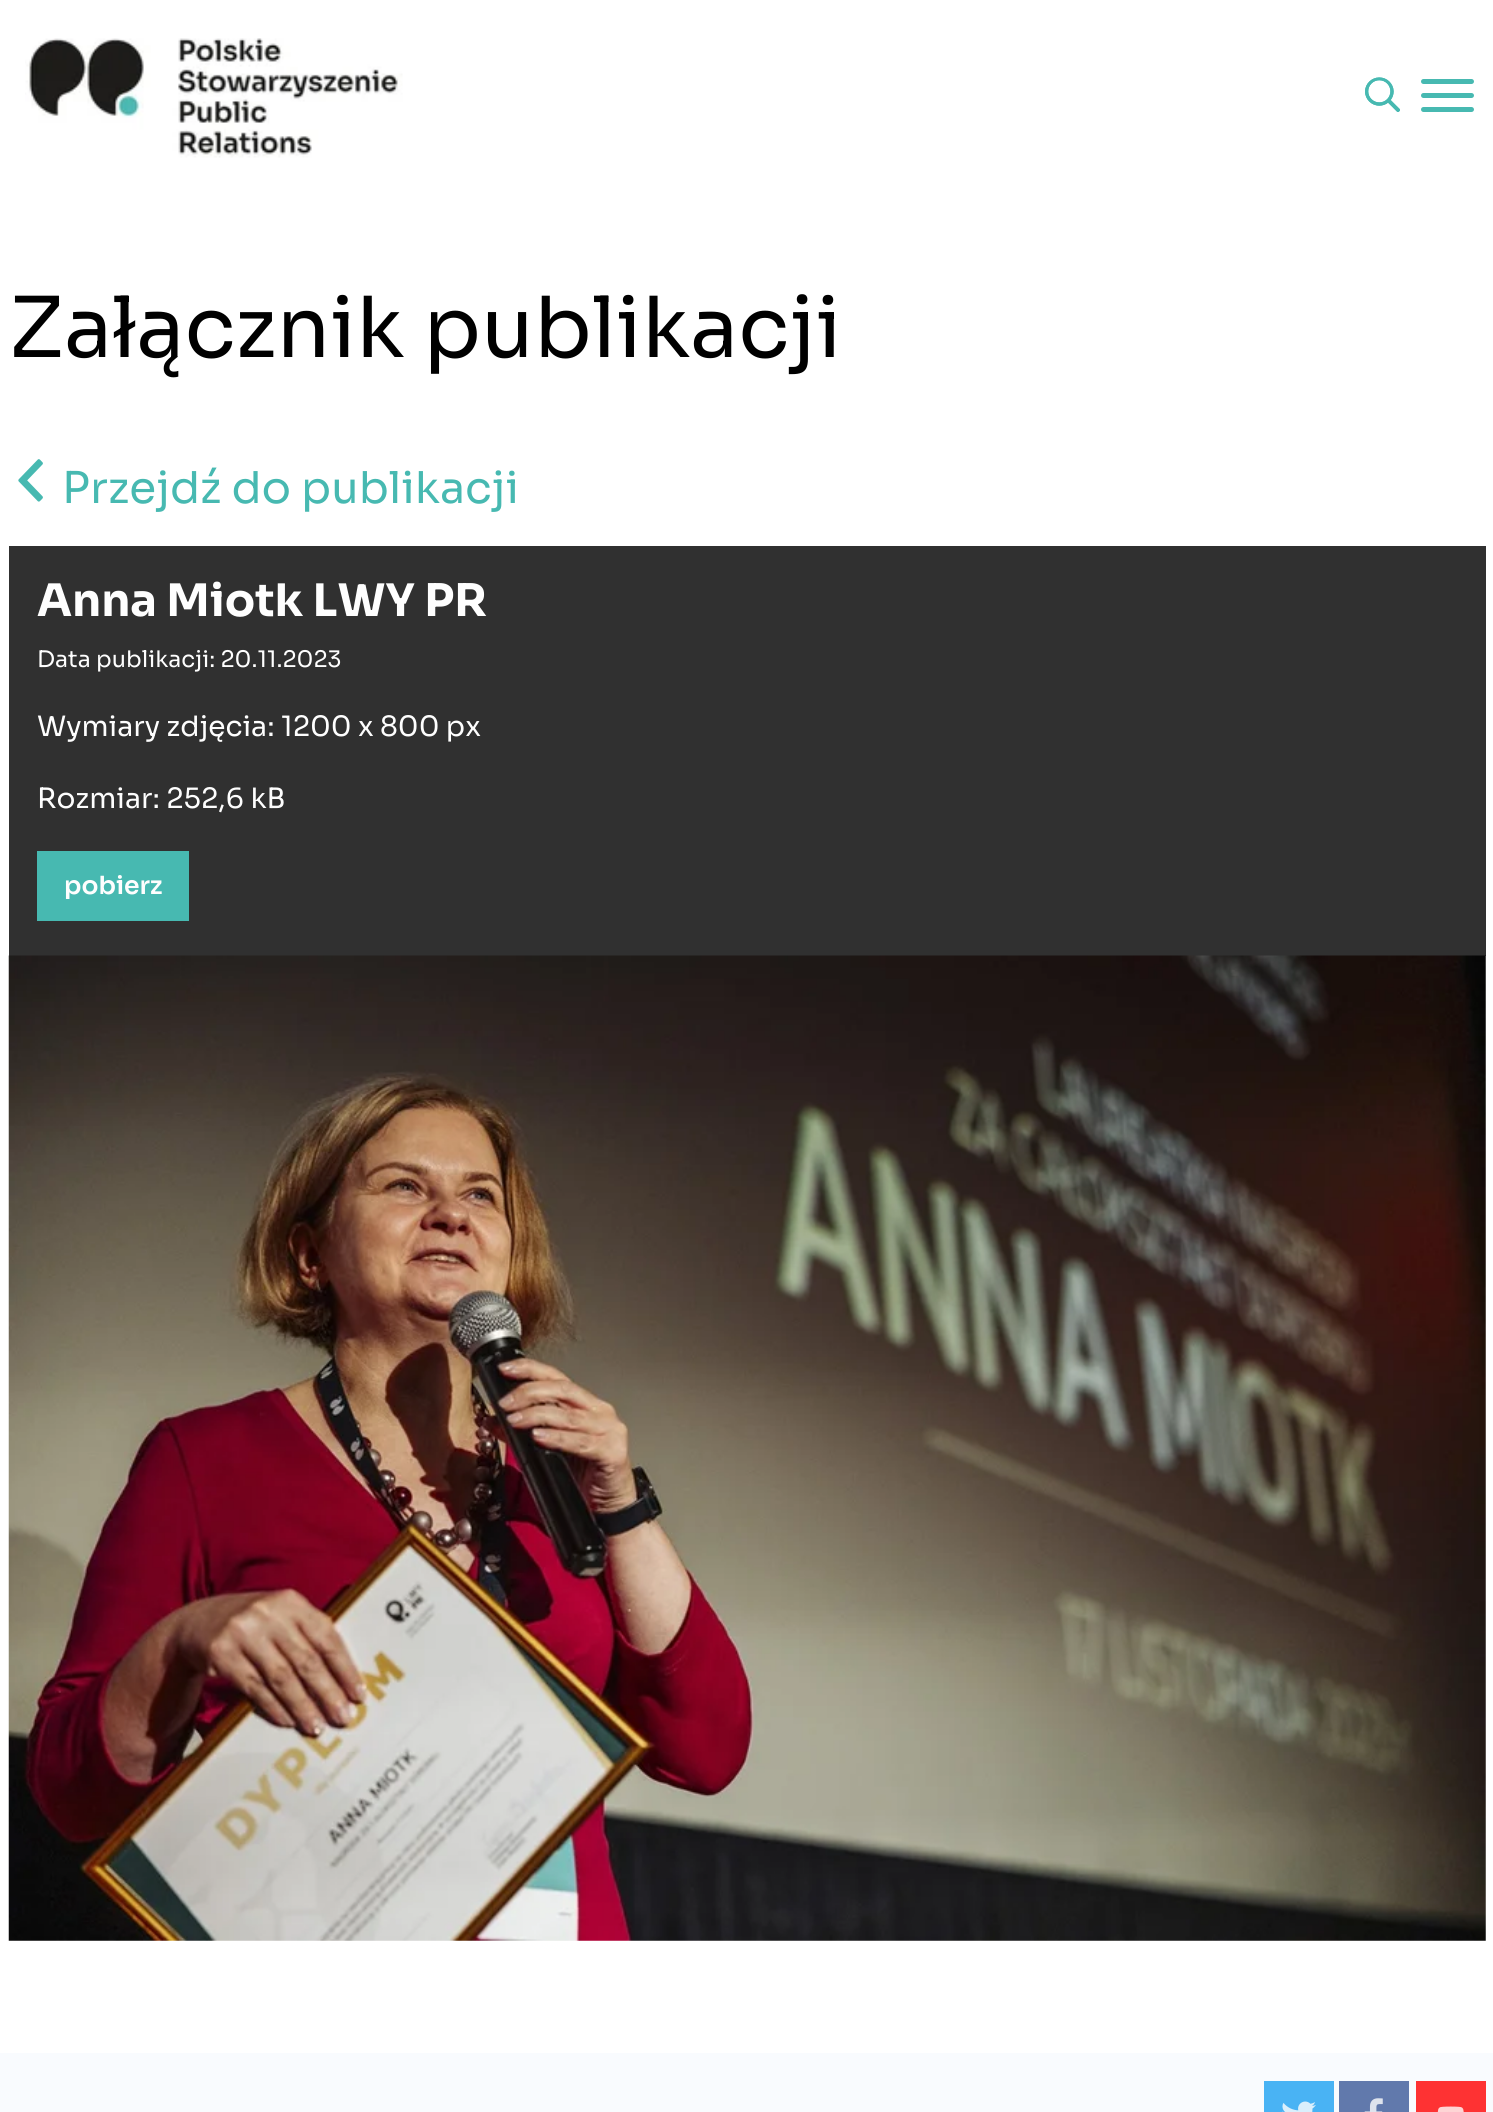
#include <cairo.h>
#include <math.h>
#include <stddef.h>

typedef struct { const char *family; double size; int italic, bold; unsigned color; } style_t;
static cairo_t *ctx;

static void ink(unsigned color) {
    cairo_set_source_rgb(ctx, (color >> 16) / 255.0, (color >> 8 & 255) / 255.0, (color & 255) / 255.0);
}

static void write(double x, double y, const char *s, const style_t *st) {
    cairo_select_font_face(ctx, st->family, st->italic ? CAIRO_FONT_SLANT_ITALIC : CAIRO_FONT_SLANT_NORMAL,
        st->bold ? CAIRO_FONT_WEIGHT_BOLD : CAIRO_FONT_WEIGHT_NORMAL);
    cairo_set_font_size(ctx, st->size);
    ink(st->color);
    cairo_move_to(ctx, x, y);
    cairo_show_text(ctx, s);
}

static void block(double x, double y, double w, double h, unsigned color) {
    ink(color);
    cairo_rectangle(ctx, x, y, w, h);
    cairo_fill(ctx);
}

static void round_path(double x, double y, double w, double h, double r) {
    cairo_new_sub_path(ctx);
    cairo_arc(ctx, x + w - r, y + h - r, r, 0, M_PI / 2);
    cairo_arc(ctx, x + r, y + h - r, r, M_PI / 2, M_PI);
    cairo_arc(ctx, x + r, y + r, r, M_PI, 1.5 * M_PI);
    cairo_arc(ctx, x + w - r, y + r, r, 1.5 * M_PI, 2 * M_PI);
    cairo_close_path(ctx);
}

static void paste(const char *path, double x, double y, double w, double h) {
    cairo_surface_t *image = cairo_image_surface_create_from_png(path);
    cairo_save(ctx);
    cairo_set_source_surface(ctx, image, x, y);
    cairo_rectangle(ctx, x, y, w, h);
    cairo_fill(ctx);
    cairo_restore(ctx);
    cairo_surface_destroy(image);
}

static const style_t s1 = {"Sora", 84, 0, 0, 0x000000};
static const style_t s2 = {"Sora", 43.75, 0, 0, 0x47b9b1};
static const style_t s3 = {"Sora", 44.75, 0, 1, 0xfefefe};
static const style_t s4 = {"Sora", 22.75, 0, 0, 0xfefefe};
static const style_t s5 = {"Sora", 28, 0, 0, 0xfefefe};
static const style_t s6 = {"Sora SemiBold", 25, 0, 0, 0xfefefe};

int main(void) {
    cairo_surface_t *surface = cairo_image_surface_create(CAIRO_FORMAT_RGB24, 1493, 2112);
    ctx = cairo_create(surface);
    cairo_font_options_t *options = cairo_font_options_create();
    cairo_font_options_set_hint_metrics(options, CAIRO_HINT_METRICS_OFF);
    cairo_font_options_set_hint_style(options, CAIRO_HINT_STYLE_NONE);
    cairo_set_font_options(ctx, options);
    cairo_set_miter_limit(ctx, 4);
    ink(0xffffff);
    cairo_paint(ctx);
    paste("pic1.png", 25, 38, 378, 120);
    paste("pic2.png", 1365, 77, 35, 35);
    paste("pic3.png", 1365, 77, 35, 35);
    ink(0x47b9b1);
    round_path(1421, 79, 53, 5, 2.5);
    cairo_fill(ctx);
    round_path(1421, 93, 53, 5, 2.5);
    cairo_fill(ctx);
    round_path(1421, 107, 53, 5, 2.5);
    cairo_fill(ctx);
    write(9, 357, "Załącznik publikacji", &s1);
    paste("pic4.png", 18, 459, 25, 43);
    write(62, 503, "Przejdź do publikacji", &s2);
    block(9, 546, 1477, 410, 0x303030);
    write(37, 616, "Anna Miotk LWY PR", &s3);
    write(37, 667, "Data publikacji: 20.11.2023", &s4);
    write(37, 736, "Wymiary zdjęcia: 1200 x 800 px", &s5);
    write(37, 808, "Rozmiar: 252,6 kB", &s5);
    block(37, 851, 152, 70, 0x47b9b1);
    write(64, 894, "pobierz", &s6);
    paste("pic5.png", 8, 955, 1478, 986);
    block(0, 2053, 1493, 59, 0xf9fbfe);
    block(1264, 2081, 70, 31, 0x49b3f4);
    paste("pic6.png", 1282, 2101, 34, 11);
    block(1339, 2081, 70, 31, 0x6179ac);
    paste("pic7.png", 1364, 2098, 19, 14);
    block(1416, 2081, 70, 31, 0xfe3233);
    paste("pic8.png", 1437, 2106, 27, 6);
    cairo_surface_write_to_png(surface, "screenshot.png");
    cairo_font_options_destroy(options);
    cairo_destroy(ctx);
    cairo_surface_destroy(surface);
    return 0;
}
